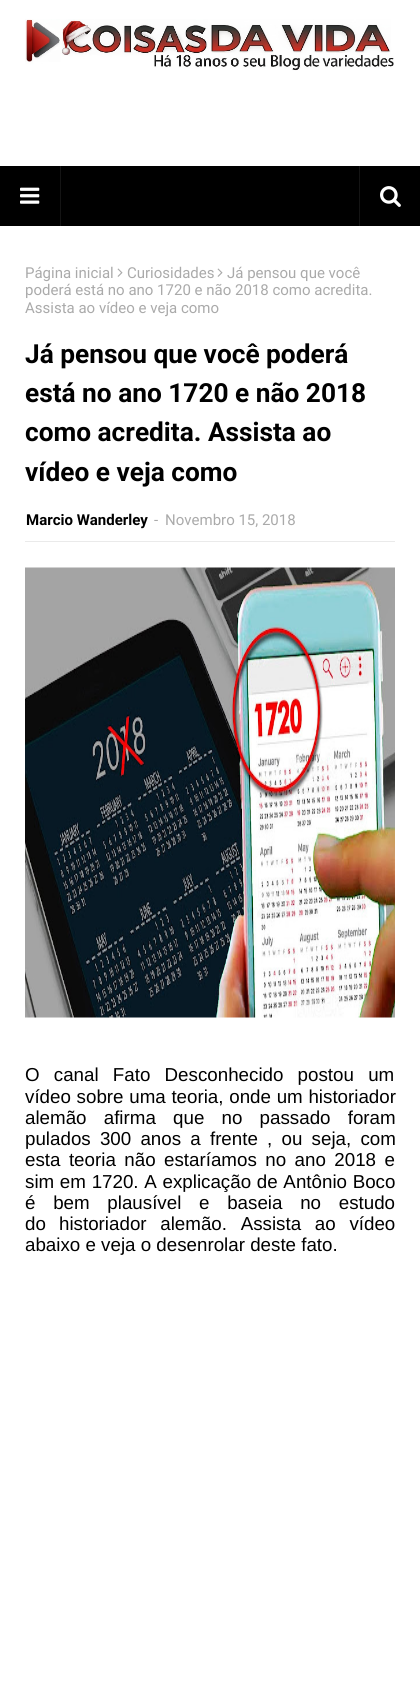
#include <cairo.h>
#include <math.h>
#include <stddef.h>

typedef struct { const char *family; double size; int italic, bold; unsigned color; } style_t;
static cairo_t *ctx;

static void ink(unsigned color) {
    cairo_set_source_rgb(ctx, (color >> 16) / 255.0, (color >> 8 & 255) / 255.0, (color & 255) / 255.0);
}

static void write(double x, double y, const char *s, const style_t *st) {
    cairo_select_font_face(ctx, st->family, st->italic ? CAIRO_FONT_SLANT_ITALIC : CAIRO_FONT_SLANT_NORMAL,
        st->bold ? CAIRO_FONT_WEIGHT_BOLD : CAIRO_FONT_WEIGHT_NORMAL);
    cairo_set_font_size(ctx, st->size);
    ink(st->color);
    cairo_move_to(ctx, x, y);
    cairo_show_text(ctx, s);
}

static void write_spaced(double x, double y, const char *s, double letter, double word) {
    cairo_move_to(ctx, x, y);
    while (*s) {
        char ch[5] = {0};
        int n = 0;
        do ch[n++] = *s++; while ((*s & 0xC0) == 0x80);
        cairo_show_text(ctx, ch);
        cairo_rel_move_to(ctx, letter + word * (*ch == ' '), 0);
    }
}

static void block(double x, double y, double w, double h, unsigned color) {
    ink(color);
    cairo_rectangle(ctx, x, y, w, h);
    cairo_fill(ctx);
}

static void paste(const char *path, double x, double y, double w, double h) {
    cairo_surface_t *image = cairo_image_surface_create_from_png(path);
    cairo_save(ctx);
    cairo_set_source_surface(ctx, image, x, y);
    cairo_rectangle(ctx, x, y, w, h);
    cairo_fill(ctx);
    cairo_restore(ctx);
    cairo_surface_destroy(image);
}

static const style_t s1 = {"Roboto", 15, 0, 0, 0xaaaaaa};
static const style_t s2 = {"Roboto", 26.25, 0, 1, 0x000000};
static const style_t s3 = {"Roboto", 15, 0, 1, 0x000000};
static const style_t s4 = {"Liberation Sans", 18.75, 0, 0, 0x000000};

int main(void) {
    cairo_surface_t *surface = cairo_image_surface_create(CAIRO_FORMAT_RGB24, 420, 1689);
    ctx = cairo_create(surface);
    cairo_font_options_t *options = cairo_font_options_create();
    cairo_font_options_set_hint_metrics(options, CAIRO_HINT_METRICS_OFF);
    cairo_font_options_set_hint_style(options, CAIRO_HINT_STYLE_NONE);
    cairo_set_font_options(ctx, options);
    cairo_set_miter_limit(ctx, 4);
    ink(0xffffff);
    cairo_paint(ctx);
    paste("pic1.png", 25, 19, 369, 52);
    block(0, 166, 420, 60, 0x000000);
    block(60, 166, 1, 60, 0x141414);
    paste("pic2.png", 20, 187, 20, 17);
    block(359, 166, 1, 60, 0x141414);
    paste("pic3.png", 380, 186, 21, 21);
    write(25, 278, "Página inicial", &s1);
    paste("pic4.png", 117, 268, 6, 9);
    write(127, 278, "Curiosidades", &s1);
    paste("pic4.png", 217, 268, 6, 9);
    write(227, 278, "Já pensou que você", &s1);
    write(25, 295, "poderá está no ano 1720 e não 2018 como acredita.", &s1);
    write(25, 313, "Assista ao vídeo e veja como", &s1);
    write(25, 363, "Já pensou que você poderá", &s2);
    write(25, 402, "está no ano 1720 e não 2018", &s2);
    write(25, 441, "como acredita. Assista ao", &s2);
    write(25, 481, "vídeo e veja como", &s2);
    block(25, 541, 370, 1, 0xeaeaea);
    write(26, 525, "Marcio Wanderley", &s3);
    write(154, 525, "-", &s1);
    write(165, 525, "Novembro 15, 2018", &s1);
    paste("pic5.png", 25, 567, 370, 451);
    cairo_select_font_face(ctx, "Liberation Sans", CAIRO_FONT_SLANT_NORMAL, CAIRO_FONT_WEIGHT_NORMAL);
    cairo_set_font_size(ctx, 18.75);
    ink(0x000000);
    write_spaced(25, 1081, "O canal Fato Desconhecido postou um", 0, 9);
    write_spaced(25, 1103, "vídeo sobre uma teoria, onde um historiador", 0, 0.5);
    write_spaced(25, 1124, "alemão afirma que no passado foram", 0, 12);
    write_spaced(25, 1145, "pulados 300 anos a frente , ou seja, com", 0, 4);
    write_spaced(25, 1166, "esta teoria não estaríamos no ano 2018 e", 0, 3.25);
    write_spaced(25, 1188, "sim em 1720. A explicação de Antônio Boco", 0, 0.5);
    write_spaced(25, 1209, "é bem plausível e baseia no estudo", 0, 12.5);
    write(25, 1230, "do", &s4);
    write_spaced(59, 1230, "historiador alemão. Assista ao vídeo", 0, 8.5);
    write(25, 1251, "abaixo e veja o desenrolar deste fato.", &s4);
    cairo_surface_write_to_png(surface, "screenshot.png");
    cairo_font_options_destroy(options);
    cairo_destroy(ctx);
    cairo_surface_destroy(surface);
    return 0;
}
